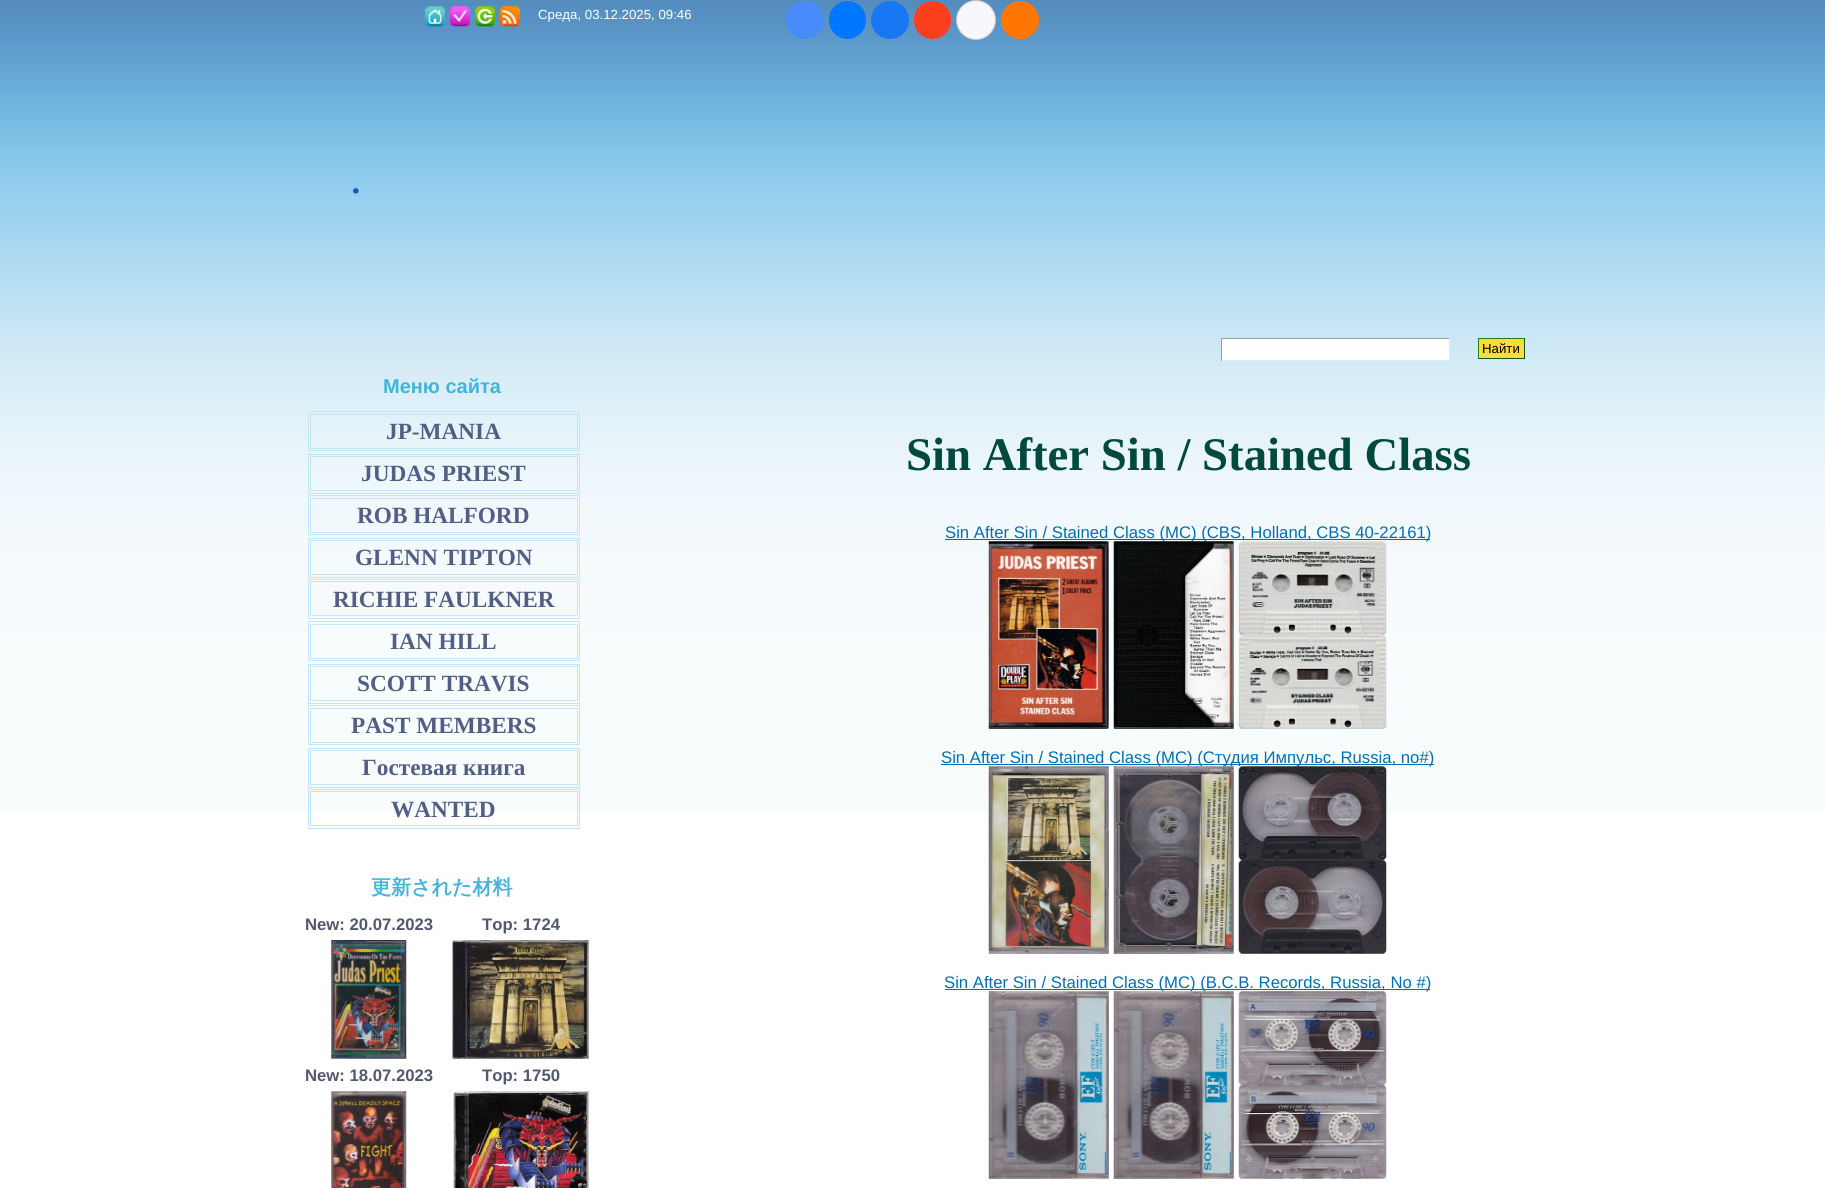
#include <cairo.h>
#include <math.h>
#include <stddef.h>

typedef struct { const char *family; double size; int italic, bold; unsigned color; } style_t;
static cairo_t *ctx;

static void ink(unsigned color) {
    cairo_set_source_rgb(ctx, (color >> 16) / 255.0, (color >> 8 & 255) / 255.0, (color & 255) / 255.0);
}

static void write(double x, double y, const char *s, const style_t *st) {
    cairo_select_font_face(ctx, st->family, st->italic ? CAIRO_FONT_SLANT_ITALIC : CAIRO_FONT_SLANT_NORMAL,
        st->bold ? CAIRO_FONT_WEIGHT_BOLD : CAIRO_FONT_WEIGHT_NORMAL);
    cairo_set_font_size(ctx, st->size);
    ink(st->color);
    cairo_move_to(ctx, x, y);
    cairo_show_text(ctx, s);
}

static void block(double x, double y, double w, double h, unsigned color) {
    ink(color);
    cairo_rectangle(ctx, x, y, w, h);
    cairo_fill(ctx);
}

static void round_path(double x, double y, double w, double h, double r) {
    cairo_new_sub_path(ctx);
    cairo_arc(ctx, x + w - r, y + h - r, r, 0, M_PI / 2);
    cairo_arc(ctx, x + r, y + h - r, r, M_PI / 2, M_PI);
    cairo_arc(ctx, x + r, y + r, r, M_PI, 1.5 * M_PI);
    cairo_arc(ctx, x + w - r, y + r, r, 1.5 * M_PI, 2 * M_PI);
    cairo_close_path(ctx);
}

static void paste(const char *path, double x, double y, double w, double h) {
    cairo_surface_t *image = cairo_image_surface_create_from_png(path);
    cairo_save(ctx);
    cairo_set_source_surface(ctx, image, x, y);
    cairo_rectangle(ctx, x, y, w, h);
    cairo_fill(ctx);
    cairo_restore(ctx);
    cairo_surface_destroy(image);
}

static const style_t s1 = {"Liberation Sans", 13.25, 0, 0, 0xffffff};
static const style_t s2 = {"Liberation Serif", 46.75, 0, 0, 0x1a56ac};
static const style_t s3 = {"Liberation Sans", 13.25, 0, 0, 0x000000};
static const style_t s4 = {"Liberation Sans", 20, 0, 1, 0x44b4da};
static const style_t s5 = {"Liberation Serif", 23.25, 0, 1, 0x525e83};
static const style_t s6 = {"WenQuanYi Zen Hei", 20, 0, 1, 0x44b4da};
static const style_t s7 = {"Liberation Sans", 16.7, 0, 1, 0x52596f};
static const style_t s8 = {"Liberation Serif", 46.75, 0, 1, 0x00493e};
static const style_t s9 = {"Liberation Sans", 16.7, 0, 0, 0x006fb2};

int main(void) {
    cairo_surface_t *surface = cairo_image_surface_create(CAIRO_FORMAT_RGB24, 1825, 1188);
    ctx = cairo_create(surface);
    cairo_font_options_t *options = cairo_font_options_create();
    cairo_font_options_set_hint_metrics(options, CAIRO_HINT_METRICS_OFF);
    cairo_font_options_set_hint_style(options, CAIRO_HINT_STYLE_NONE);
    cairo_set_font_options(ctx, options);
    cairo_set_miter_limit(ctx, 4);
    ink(0xffffff);
    cairo_paint(ctx);
    paste("pic1.png", 0, 0, 1825, 813);
    paste("pic2.png", 425, 6, 20, 21);
    paste("pic3.png", 450, 6, 20, 21);
    paste("pic4.png", 475, 6, 20, 21);
    paste("pic5.png", 500, 6, 20, 21);
    write(538, 19, "Среда, 03.12.2025, 09:46", &s1);
    ink(0x498bfa);
    cairo_new_path(ctx);
    cairo_arc(ctx, 805, 20, 19, 0, 2 * M_PI);
    cairo_fill(ctx);
    ink(0x0077ff);
    round_path(829, 1, 37, 38, 18.5);
    cairo_fill(ctx);
    ink(0x1877f2);
    cairo_arc(ctx, 890, 20, 19, 0, 2 * M_PI);
    cairo_fill(ctx);
    ink(0xfc3f1d);
    round_path(914, 1, 37, 38, 18.5);
    cairo_fill(ctx);
    ink(0xf8f8fc);
    cairo_arc(ctx, 976, 20, 19.5, 0, 2 * M_PI);
    cairo_fill_preserve(ctx);
    ink(0xc4c4c4);
    cairo_set_line_width(ctx, 1);
    cairo_stroke(ctx);
    ink(0xff7700);
    cairo_arc(ctx, 1020, 20, 19, 0, 2 * M_PI);
    cairo_fill(ctx);
    write(350, 193, ".", &s2);
    block(1222, 339, 227, 21, 0xffffff);
    block(1221, 338, 229, 1, 0x93a0a5);
    block(1449, 338, 1, 23, 0xddf0f7);
    block(1221, 360, 229, 1, 0xddf0f7);
    block(1221, 338, 1, 23, 0x93a0a5);
    block(1479, 339, 45, 19, 0xf9dc3d);
    block(1478, 338, 47, 1, 0x237c23);
    block(1524, 338, 1, 21, 0x175317);
    block(1478, 358, 47, 1, 0x175317);
    block(1478, 338, 1, 21, 0x237c23);
    write(1482, 353, "Найти", &s3);
    write(383, 393, "Меню сайта", &s4);
    cairo_rectangle(ctx, 308.5, 411.5, 271, 39);
    ink(0xc5e5f5);
    cairo_stroke(ctx);
    cairo_rectangle(ctx, 310.5, 414.5, 267, 34);
    cairo_stroke(ctx);
    write(386, 439, "JP-MANIA", &s5);
    cairo_rectangle(ctx, 308.5, 454.5, 271, 39);
    ink(0xc5e5f5);
    cairo_stroke(ctx);
    cairo_rectangle(ctx, 310.5, 456.5, 267, 34);
    cairo_stroke(ctx);
    write(361, 481, "JUDAS PRIEST", &s5);
    cairo_rectangle(ctx, 308.5, 495.5, 271, 39);
    ink(0xc5e5f5);
    cairo_stroke(ctx);
    cairo_rectangle(ctx, 310.5, 498.5, 267, 34);
    cairo_stroke(ctx);
    write(357, 523, "ROB HALFORD", &s5);
    cairo_rectangle(ctx, 308.5, 538.5, 271, 39);
    ink(0xc5e5f5);
    cairo_stroke(ctx);
    cairo_rectangle(ctx, 310.5, 540.5, 267, 34);
    cairo_stroke(ctx);
    write(355, 565, "GLENN TIPTON", &s5);
    cairo_rectangle(ctx, 308.5, 579.5, 271, 39);
    ink(0xc5e5f5);
    cairo_stroke(ctx);
    cairo_rectangle(ctx, 310.5, 581.5, 267, 34);
    cairo_stroke(ctx);
    write(333, 607, "RICHIE FAULKNER", &s5);
    cairo_rectangle(ctx, 308.5, 621.5, 271, 39);
    ink(0xc5e5f5);
    cairo_stroke(ctx);
    cairo_rectangle(ctx, 310.5, 624.5, 267, 34);
    cairo_stroke(ctx);
    write(390, 649, "IAN HILL", &s5);
    cairo_rectangle(ctx, 308.5, 664.5, 271, 39);
    ink(0xc5e5f5);
    cairo_stroke(ctx);
    cairo_rectangle(ctx, 310.5, 666.5, 267, 34);
    cairo_stroke(ctx);
    write(357, 691, "SCOTT TRAVIS", &s5);
    cairo_rectangle(ctx, 308.5, 705.5, 271, 39);
    ink(0xc5e5f5);
    cairo_stroke(ctx);
    cairo_rectangle(ctx, 310.5, 708.5, 267, 34);
    cairo_stroke(ctx);
    write(351, 733, "PAST MEMBERS", &s5);
    cairo_rectangle(ctx, 308.5, 748.5, 271, 39);
    ink(0xc5e5f5);
    cairo_stroke(ctx);
    cairo_rectangle(ctx, 310.5, 750.5, 267, 34);
    cairo_stroke(ctx);
    write(362, 775, "Гостевая книга", &s5);
    cairo_rectangle(ctx, 308.5, 789.5, 271, 39);
    ink(0xc5e5f5);
    cairo_stroke(ctx);
    cairo_rectangle(ctx, 310.5, 791.5, 267, 34);
    cairo_stroke(ctx);
    write(391, 817, "WANTED", &s5);
    write(371, 894, "更新された材料", &s6);
    write(305, 930, "New: 20.07.2023", &s7);
    paste("pic6.png", 331, 940, 76, 119);
    write(305, 1081, "New: 18.07.2023", &s7);
    paste("pic7.png", 331, 1091, 76, 97);
    write(482, 930, "Top: 1724", &s7);
    paste("pic8.png", 452, 940, 137, 119);
    write(482, 1081, "Top: 1750", &s7);
    paste("pic9.png", 453, 1091, 136, 97);
    write(906, 470, "Sin After Sin / Stained Class", &s8);
    block(945, 539, 485, 1, 0x006fb2);
    write(945, 538, "Sin After Sin / Stained Class (MC) (CBS, Holland, CBS 40-22161)", &s9);
    paste("pic10.png", 988, 541, 121, 188);
    paste("pic11.png", 1113, 541, 121, 188);
    paste("pic12.png", 1238, 541, 149, 188);
    block(941, 764, 493, 1, 0x006fb2);
    write(941, 763, "Sin After Sin / Stained Class (MC) (Студия Импульс, Russia, no#)", &s9);
    paste("pic13.png", 988, 766, 121, 188);
    paste("pic14.png", 1113, 766, 121, 188);
    paste("pic15.png", 1238, 766, 149, 188);
    block(945, 989, 485, 1, 0x006fb2);
    write(944, 988, "Sin After Sin / Stained Class (MC) (B.C.B. Records, Russia, No #)", &s9);
    paste("pic16.png", 988, 991, 121, 188);
    paste("pic17.png", 1113, 991, 121, 188);
    paste("pic18.png", 1238, 991, 149, 188);
    cairo_surface_write_to_png(surface, "screenshot.png");
    cairo_font_options_destroy(options);
    cairo_destroy(ctx);
    cairo_surface_destroy(surface);
    return 0;
}
